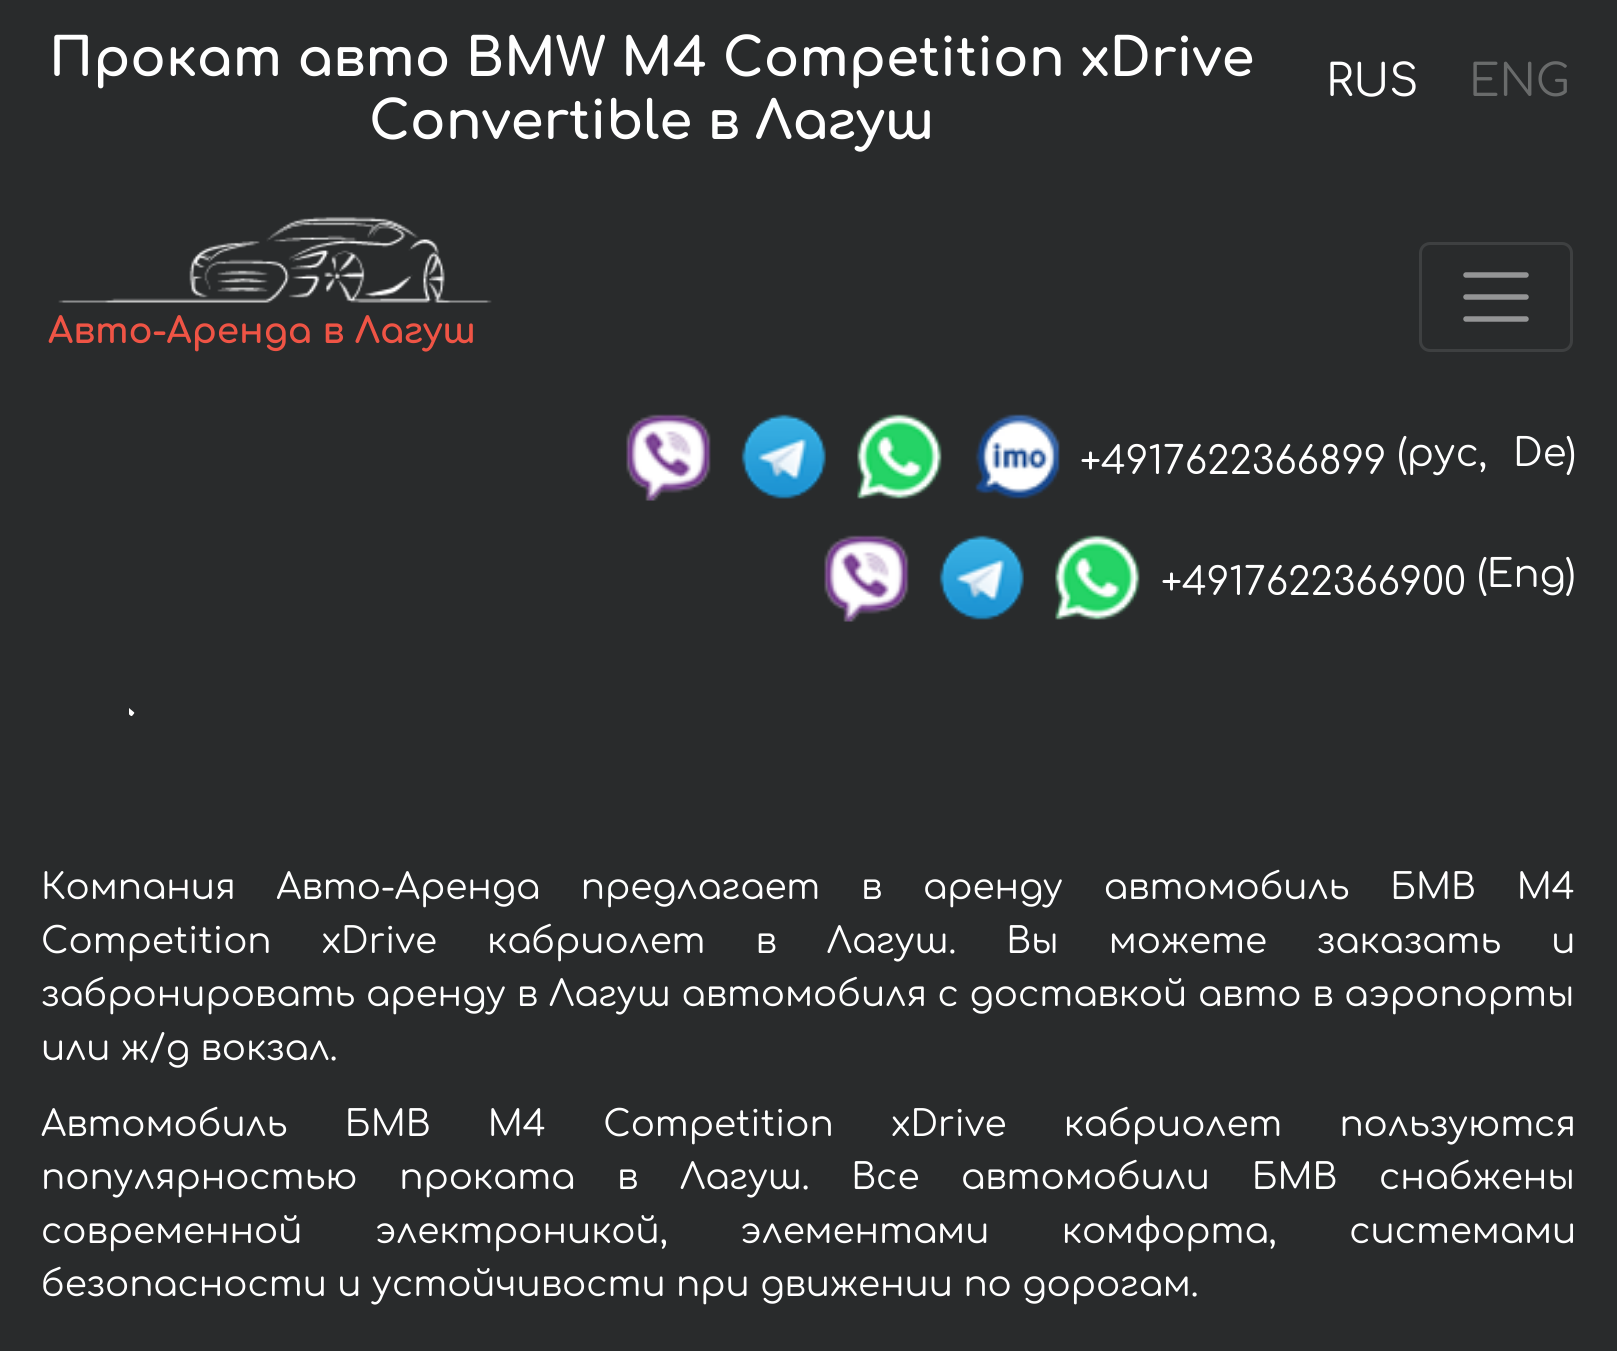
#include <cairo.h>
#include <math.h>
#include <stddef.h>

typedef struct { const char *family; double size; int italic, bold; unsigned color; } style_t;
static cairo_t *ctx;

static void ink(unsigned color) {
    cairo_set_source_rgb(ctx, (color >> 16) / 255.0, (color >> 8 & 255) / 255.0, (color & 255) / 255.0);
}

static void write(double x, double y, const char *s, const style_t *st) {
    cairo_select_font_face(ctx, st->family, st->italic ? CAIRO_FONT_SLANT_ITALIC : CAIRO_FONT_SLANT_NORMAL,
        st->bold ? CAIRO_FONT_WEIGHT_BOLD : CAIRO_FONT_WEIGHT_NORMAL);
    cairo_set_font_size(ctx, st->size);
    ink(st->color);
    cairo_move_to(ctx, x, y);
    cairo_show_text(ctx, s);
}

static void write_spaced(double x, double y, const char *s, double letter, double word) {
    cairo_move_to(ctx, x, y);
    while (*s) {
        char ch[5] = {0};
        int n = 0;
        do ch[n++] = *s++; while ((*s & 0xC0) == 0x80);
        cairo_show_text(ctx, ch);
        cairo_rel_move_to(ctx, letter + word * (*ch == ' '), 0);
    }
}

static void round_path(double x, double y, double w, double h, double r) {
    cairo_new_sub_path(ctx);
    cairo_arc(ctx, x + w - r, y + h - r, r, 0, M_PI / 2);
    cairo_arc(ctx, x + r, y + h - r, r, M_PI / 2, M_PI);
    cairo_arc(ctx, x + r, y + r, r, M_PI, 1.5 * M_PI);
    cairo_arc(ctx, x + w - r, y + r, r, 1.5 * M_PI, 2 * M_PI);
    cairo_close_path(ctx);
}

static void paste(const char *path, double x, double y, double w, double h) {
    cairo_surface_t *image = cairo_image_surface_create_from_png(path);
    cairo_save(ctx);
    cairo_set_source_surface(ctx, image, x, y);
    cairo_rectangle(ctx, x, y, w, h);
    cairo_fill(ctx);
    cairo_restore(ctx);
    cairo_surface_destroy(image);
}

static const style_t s1 = {"Comfortaa", 52.8, 0, 1, 0xffffff};
static const style_t s2 = {"Comfortaa", 44, 0, 0, 0xffffff};
static const style_t s3 = {"Comfortaa", 44, 0, 0, 0x696b6b};
static const style_t s4 = {"Comfortaa", 35.75, 0, 1, 0xef5445};
static const style_t s5 = {"Comfortaa", 38.5, 0, 0, 0xffffff};
static const style_t s6 = {"Comfortaa", 35.75, 0, 0, 0xffffff};

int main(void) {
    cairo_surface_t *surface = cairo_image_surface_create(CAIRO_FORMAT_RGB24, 1617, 1351);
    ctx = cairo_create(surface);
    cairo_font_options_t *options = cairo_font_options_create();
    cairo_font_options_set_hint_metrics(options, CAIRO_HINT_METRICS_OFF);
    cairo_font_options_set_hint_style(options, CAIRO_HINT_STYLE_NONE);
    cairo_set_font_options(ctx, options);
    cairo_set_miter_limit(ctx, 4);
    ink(0x292b2c);
    cairo_paint(ctx);
    write(49, 76, "Прокат авто BMW M4 Competition xDrive", &s1);
    write(369, 139, "Convertible в Лагуш", &s1);
    write(1326, 96, "RUS", &s2);
    write(1469, 96, "ENG", &s3);
    paste("pic1.png", 58, 216, 434, 87);
    write(48, 343, "Авто-Аренда в Лагуш", &s4);
    round_path(1420.5, 243.5, 151, 107, 9.5);
    ink(0x3e4041);
    cairo_set_line_width(ctx, 3);
    cairo_stroke(ctx);
    cairo_new_path(ctx);
    cairo_move_to(ctx, 1466, 275);
    cairo_line_to(ctx, 1526, 275);
    cairo_move_to(ctx, 1466, 297);
    cairo_line_to(ctx, 1526, 297);
    cairo_move_to(ctx, 1466, 319);
    cairo_line_to(ctx, 1526, 319);
    ink(0x949596);
    cairo_set_line_width(ctx, 5.5);
    cairo_set_line_cap(ctx, CAIRO_LINE_CAP_ROUND);
    cairo_stroke(ctx);
    paste("pic2.png", 626, 414, 85, 87);
    paste("pic3.png", 741, 414, 85, 85);
    paste("pic4.png", 857, 414, 85, 85);
    paste("pic5.png", 975, 414, 85, 85);
    write(1080, 474, "+4917622366899", &s5);
    write(1397, 466, "(рус,", &s5);
    write(1513, 466, "De)", &s5);
    paste("pic2.png", 824, 535, 85, 87);
    paste("pic6.png", 939, 535, 85, 85);
    paste("pic7.png", 1055, 535, 85, 85);
    write(1161, 595, "+4917622366900", &s5);
    write(1477, 587, "(Eng)", &s5);
    paste("pic8.png", 129, 708, 6, 8);
    cairo_set_font_size(ctx, 35.75);
    write_spaced(41, 899, "Компания Авто-Аренда предлагает в аренду автомобиль БМВ M4", 0, 30.25);
    write_spaced(41, 953, "Competition xDrive кабриолет в Лагуш. Вы можете заказать и", 0, 39.5);
    write_spaced(41, 1006, "забронировать аренду в Лагуш автомобиля с доставкой авто в аэропорты", 0, 0.25);
    write(41, 1060, "или ж/д вокзал.", &s6);
    write_spaced(41, 1136, "Автомобиль БМВ M4 Competition xDrive кабриолет пользуются", 0, 46.75);
    write_spaced(41, 1189, "популярностью проката в Лагуш. Все автомобили БМВ снабжены", 0, 31.25);
    write_spaced(41, 1243, "современной электроникой, элементами комфорта, системами", 0, 62);
    write(41, 1296, "безопасности и устойчивости при движении по дорогам.", &s6);
    cairo_surface_write_to_png(surface, "screenshot.png");
    cairo_font_options_destroy(options);
    cairo_destroy(ctx);
    cairo_surface_destroy(surface);
    return 0;
}
